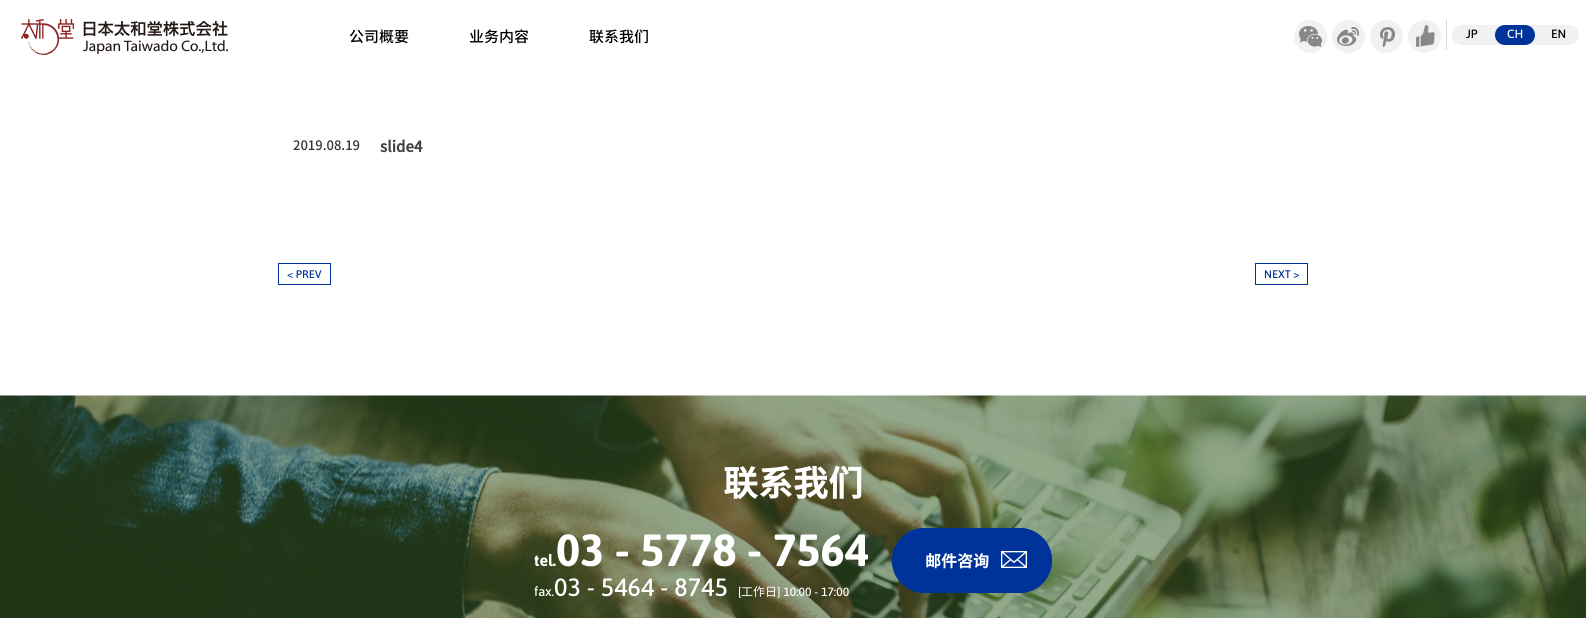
#include <cairo.h>
#include <math.h>
#include <stddef.h>

typedef struct { const char *family; double size; int italic, bold; unsigned color; } style_t;
static cairo_t *ctx;

static void ink(unsigned color) {
    cairo_set_source_rgb(ctx, (color >> 16) / 255.0, (color >> 8 & 255) / 255.0, (color & 255) / 255.0);
}

static void write(double x, double y, const char *s, const style_t *st) {
    cairo_select_font_face(ctx, st->family, st->italic ? CAIRO_FONT_SLANT_ITALIC : CAIRO_FONT_SLANT_NORMAL,
        st->bold ? CAIRO_FONT_WEIGHT_BOLD : CAIRO_FONT_WEIGHT_NORMAL);
    cairo_set_font_size(ctx, st->size);
    ink(st->color);
    cairo_move_to(ctx, x, y);
    cairo_show_text(ctx, s);
}

static void block(double x, double y, double w, double h, unsigned color) {
    ink(color);
    cairo_rectangle(ctx, x, y, w, h);
    cairo_fill(ctx);
}

static void round_path(double x, double y, double w, double h, double r) {
    cairo_new_sub_path(ctx);
    cairo_arc(ctx, x + w - r, y + h - r, r, 0, M_PI / 2);
    cairo_arc(ctx, x + r, y + h - r, r, M_PI / 2, M_PI);
    cairo_arc(ctx, x + r, y + r, r, M_PI, 1.5 * M_PI);
    cairo_arc(ctx, x + w - r, y + r, r, 1.5 * M_PI, 2 * M_PI);
    cairo_close_path(ctx);
}

static void paste(const char *path, double x, double y, double w, double h) {
    cairo_surface_t *image = cairo_image_surface_create_from_png(path);
    cairo_save(ctx);
    cairo_set_source_surface(ctx, image, x, y);
    cairo_rectangle(ctx, x, y, w, h);
    cairo_fill(ctx);
    cairo_restore(ctx);
    cairo_surface_destroy(image);
}

static const style_t s1 = {"Noto Sans SC Medium", 15, 0, 0, 0x000000};
static const style_t s2 = {"Asap Medium", 12, 0, 0, 0x000000};
static const style_t s3 = {"Asap Medium", 12, 0, 0, 0xffffff};
static const style_t s4 = {"Noto Sans SC Medium", 13, 0, 0, 0x333333};
static const style_t s5 = {"Noto Sans SC", 15, 0, 1, 0x434343};
static const style_t s6 = {"Asap Medium", 11, 0, 0, 0x003399};
static const style_t s7 = {"Noto Sans SC", 35, 0, 1, 0xffffff};
static const style_t s8 = {"Asap", 16, 0, 1, 0xffffff};
static const style_t s9 = {"Asap", 45, 0, 1, 0xffffff};
static const style_t s10 = {"Asap Medium", 13, 0, 0, 0xffffff};
static const style_t s11 = {"Asap Medium", 25, 0, 0, 0xffffff};
static const style_t s12 = {"Noto Sans CJK SC", 12, 0, 0, 0xffffff};
static const style_t s13 = {"Noto Sans SC", 16, 0, 1, 0xffffff};

int main(void) {
    cairo_surface_t *surface = cairo_image_surface_create(CAIRO_FORMAT_RGB24, 1586, 618);
    ctx = cairo_create(surface);
    cairo_font_options_t *options = cairo_font_options_create();
    cairo_font_options_set_hint_metrics(options, CAIRO_HINT_METRICS_OFF);
    cairo_font_options_set_hint_style(options, CAIRO_HINT_STYLE_NONE);
    cairo_set_font_options(ctx, options);
    cairo_set_miter_limit(ctx, 4);
    ink(0xffffff);
    cairo_paint(ctx);
    paste("pic1.png", 21, 19, 207, 36);
    write(349, 42, "公司概要", &s1);
    write(469, 42, "业务内容", &s1);
    write(589, 42, "联系我们", &s1);
    ink(0xf0f1f3);
    cairo_new_path(ctx);
    cairo_arc(ctx, 1310.5, 36.5, 16.5, 0, 2 * M_PI);
    cairo_fill(ctx);
    paste("pic2.png", 1299, 26, 23, 21);
    cairo_arc(ctx, 1348.5, 36.5, 16.5, 0, 2 * M_PI);
    cairo_fill(ctx);
    paste("pic3.png", 1337, 27, 22, 19);
    cairo_arc(ctx, 1386.5, 36.5, 16.5, 0, 2 * M_PI);
    cairo_fill(ctx);
    paste("pic4.png", 1380, 27, 15, 20);
    cairo_arc(ctx, 1424.5, 36.5, 16.5, 0, 2 * M_PI);
    cairo_fill(ctx);
    paste("pic5.png", 1416, 25, 19, 22);
    block(1446, 20, 1, 30, 0xd7d7d7);
    ink(0xf0f1f3);
    round_path(1452, 25, 127, 20, 10);
    cairo_fill(ctx);
    write(1466, 38, "JP", &s2);
    ink(0x003399);
    round_path(1495, 25, 40, 20, 10);
    cairo_fill(ctx);
    write(1507, 38, "CH", &s3);
    write(1551, 38, "EN", &s2);
    write(293, 150, "2019.08.19", &s4);
    write(380, 152, "slide4", &s5);
    cairo_rectangle(ctx, 278.5, 263.5, 52, 21);
    ink(0x003399);
    cairo_set_line_width(ctx, 1);
    cairo_stroke(ctx);
    write(287, 278, "< PREV", &s6);
    cairo_rectangle(ctx, 1255.5, 263.5, 52, 21);
    cairo_stroke(ctx);
    write(1264, 278, "NEXT >", &s6);
    paste("pic6.png", 0, 395, 1586, 223);
    write(723, 496, "联系我们", &s7);
    write(534, 566, "tel.", &s8);
    write(556, 566, "03 - 5778 - 7564", &s9);
    write(534, 596, "fax.", &s10);
    write(554, 596, "03 - 5464 - 8745", &s11);
    write(738, 596, "[", &s3);
    write(741, 596, "工作日", &s12);
    write(777, 596, "] 10:00 - 17:00", &s3);
    ink(0x003399);
    round_path(892, 528, 160, 65, 32.5);
    cairo_fill(ctx);
    paste("pic7.png", 1001, 551, 26, 17);
    round_path(893.5, 529.5, 157, 62, 31);
    cairo_set_line_width(ctx, 3);
    cairo_stroke(ctx);
    write(925, 567, "邮件咨询", &s13);
    cairo_surface_write_to_png(surface, "screenshot.png");
    cairo_font_options_destroy(options);
    cairo_destroy(ctx);
    cairo_surface_destroy(surface);
    return 0;
}
